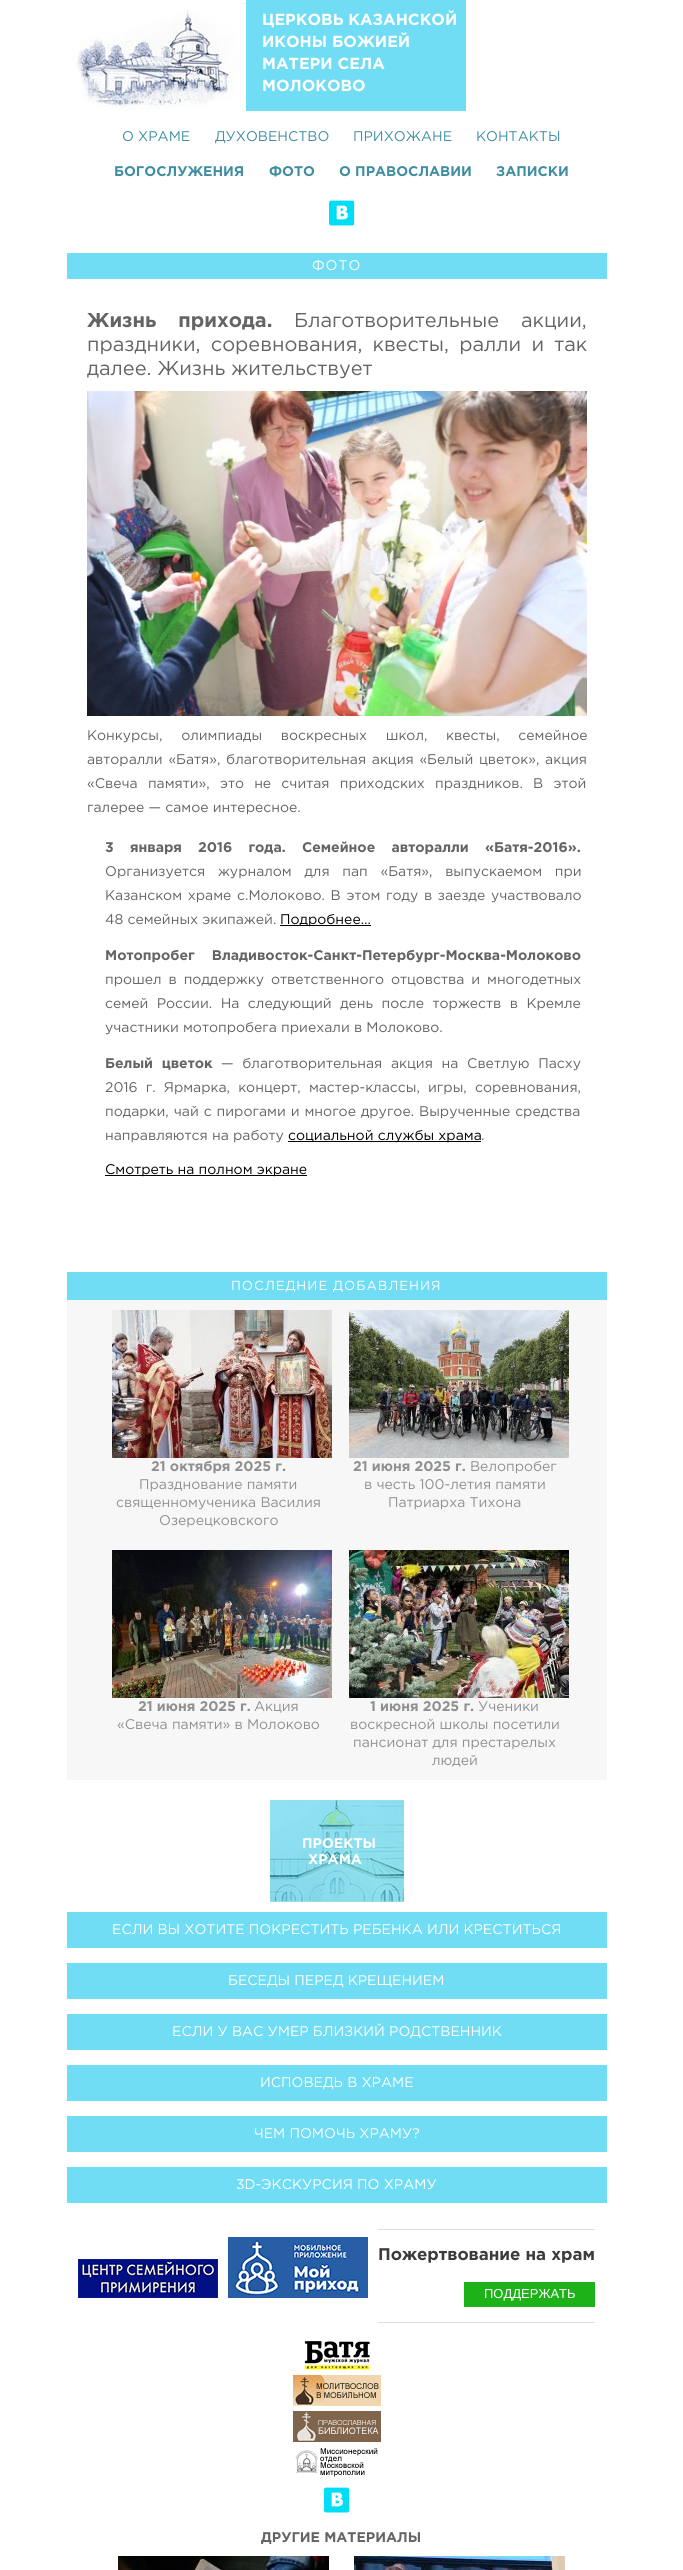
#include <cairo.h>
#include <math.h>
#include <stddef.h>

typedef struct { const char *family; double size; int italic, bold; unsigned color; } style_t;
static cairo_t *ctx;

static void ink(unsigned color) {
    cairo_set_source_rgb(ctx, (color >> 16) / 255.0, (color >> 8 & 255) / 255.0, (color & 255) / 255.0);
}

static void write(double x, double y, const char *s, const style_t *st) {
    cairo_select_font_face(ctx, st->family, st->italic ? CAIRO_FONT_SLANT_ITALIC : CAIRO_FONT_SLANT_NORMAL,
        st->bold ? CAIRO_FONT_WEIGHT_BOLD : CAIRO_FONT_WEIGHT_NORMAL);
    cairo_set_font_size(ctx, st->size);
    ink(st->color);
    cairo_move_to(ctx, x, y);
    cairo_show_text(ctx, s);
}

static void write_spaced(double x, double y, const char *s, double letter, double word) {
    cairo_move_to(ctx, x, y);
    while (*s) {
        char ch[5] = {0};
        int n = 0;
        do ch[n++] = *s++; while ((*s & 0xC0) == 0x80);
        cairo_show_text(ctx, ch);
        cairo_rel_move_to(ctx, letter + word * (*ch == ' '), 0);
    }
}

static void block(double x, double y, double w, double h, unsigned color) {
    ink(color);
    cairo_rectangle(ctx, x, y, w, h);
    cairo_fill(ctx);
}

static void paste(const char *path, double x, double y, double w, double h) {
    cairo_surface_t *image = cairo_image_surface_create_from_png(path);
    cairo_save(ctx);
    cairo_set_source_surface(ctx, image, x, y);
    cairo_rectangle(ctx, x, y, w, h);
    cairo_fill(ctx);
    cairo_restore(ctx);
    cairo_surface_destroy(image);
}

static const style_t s1 = {"Gotham", 16, 0, 1, 0xffffff};
static const style_t s2 = {"Gotham", 14, 0, 0, 0x418ea2};
static const style_t s3 = {"Gotham", 14, 0, 1, 0x418ea2};
static const style_t s4 = {"Gotham", 20, 0, 0, 0x646464};
static const style_t s5 = {"Gotham", 14, 0, 0, 0x646464};
static const style_t s6 = {"Gotham", 14, 0, 0, 0x000000};
static const style_t s7 = {"Gotham", 14, 0, 1, 0x909090};
static const style_t s8 = {"Gotham", 14, 0, 0, 0x909090};
static const style_t s9 = {"Gotham", 14, 0, 1, 0xffffff};
static const style_t s10 = {"Gotham", 14, 0, 0, 0xffffff};
static const style_t s11 = {"Gotham", 16.9, 0, 1, 0x3c3c3c};
static const style_t s12 = {"Liberation Sans", 13, 0, 0, 0xffffff};
static const style_t s13 = {"Gotham", 14, 0, 1, 0x646464};

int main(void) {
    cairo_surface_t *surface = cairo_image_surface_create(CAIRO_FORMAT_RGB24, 683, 2570);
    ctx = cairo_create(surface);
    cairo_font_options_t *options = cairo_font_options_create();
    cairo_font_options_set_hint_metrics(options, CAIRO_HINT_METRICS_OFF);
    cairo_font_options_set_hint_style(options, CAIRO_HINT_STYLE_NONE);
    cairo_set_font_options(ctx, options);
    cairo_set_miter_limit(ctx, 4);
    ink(0xffffff);
    cairo_paint(ctx);
    paste("pic1.png", 74, 3, 172, 106);
    block(246, 0, 220, 111, 0x70ddf4);
    write(262, 25, "ЦЕРКОВЬ КАЗАНСКОЙ", &s1);
    write(262, 47, "ИКОНЫ БОЖИЕЙ", &s1);
    write(262, 69, "МАТЕРИ СЕЛА", &s1);
    write(262, 91, "МОЛОКОВО", &s1);
    write(122, 141, "О ХРАМЕ", &s2);
    write(215, 141, "ДУХОВЕНСТВО", &s2);
    write(353, 141, "ПРИХОЖАНЕ", &s2);
    write(476, 141, "КОНТАКТЫ", &s2);
    write(114, 176, "БОГОСЛУЖЕНИЯ", &s3);
    write(269, 176, "ФОТО", &s3);
    write(339, 176, "О ПРАВОСЛАВИИ", &s3);
    write(496, 176, "ЗАПИСКИ", &s3);
    paste("pic2.png", 329, 200, 26, 26);
    block(67, 253, 540, 26, 0x70ddf4);
    cairo_select_font_face(ctx, "Gotham", CAIRO_FONT_SLANT_NORMAL, CAIRO_FONT_WEIGHT_NORMAL);
    ink(0xffffff);
    write_spaced(312, 270, "ФОТО", 1, 0);
    cairo_select_font_face(ctx, "Gotham", CAIRO_FONT_SLANT_NORMAL, CAIRO_FONT_WEIGHT_BOLD);
    cairo_set_font_size(ctx, 20);
    ink(0x646464);
    write_spaced(87, 327, "Жизнь прихода.", 0, 16);
    cairo_select_font_face(ctx, "Gotham", CAIRO_FONT_SLANT_NORMAL, CAIRO_FONT_WEIGHT_NORMAL);
    write_spaced(294, 327, "Благотворительные акции,", 0, 16);
    write_spaced(87, 351, "праздники, соревнования, квесты, ралли и так", 0, 4.25);
    write(87, 375, "далее. Жизнь жительствует", &s4);
    paste("pic3.png", 87, 391, 500, 325);
    cairo_set_font_size(ctx, 14);
    write_spaced(87, 740, "Конкурсы, олимпиады воскресных школ, квесты, семейное", 0, 14.5);
    write_spaced(87, 764, "авторалли «Батя», благотворительная акция «Белый цветок», акция", 0, 1.5);
    write_spaced(87, 788, "«Свеча памяти», это не считая приходских праздников. В этой", 0, 6);
    write(87, 812, "галерее — самое интересное.", &s5);
    cairo_select_font_face(ctx, "Gotham", CAIRO_FONT_SLANT_NORMAL, CAIRO_FONT_WEIGHT_BOLD);
    write_spaced(105, 852, "3 января 2016 года. Семейное авторалли «Батя-2016».", 0, 12);
    cairo_select_font_face(ctx, "Gotham", CAIRO_FONT_SLANT_NORMAL, CAIRO_FONT_WEIGHT_NORMAL);
    write_spaced(105, 876, "Организуется журналом для пап «Батя», выпускаемом при", 0, 8.5);
    write_spaced(105, 900, "Казанском храме с.Молоково. В этом году в заезде участвовало", 0, 1.5);
    write(105, 924, "48 семейных экипажей.", &s5);
    block(280, 925, 91, 1, 0x000000);
    write(280, 924, "Подробнее…", &s6);
    cairo_select_font_face(ctx, "Gotham", CAIRO_FONT_SLANT_NORMAL, CAIRO_FONT_WEIGHT_BOLD);
    ink(0x646464);
    write_spaced(105, 960, "Мотопробег Владивосток-Санкт-Петербург-Москва-Молоково", 0, 13);
    cairo_select_font_face(ctx, "Gotham", CAIRO_FONT_SLANT_NORMAL, CAIRO_FONT_WEIGHT_NORMAL);
    write_spaced(105, 984, "прошел в поддержку ответственного отцовства и многодетных", 0, 2.75);
    write_spaced(105, 1008, "семей России. На следующий день после торжеств в Кремле", 0, 4.25);
    write(105, 1032, "участники мотопробега приехали в Молоково.", &s5);
    cairo_select_font_face(ctx, "Gotham", CAIRO_FONT_SLANT_NORMAL, CAIRO_FONT_WEIGHT_BOLD);
    write_spaced(105, 1068, "Белый цветок", 0, 4.5);
    cairo_select_font_face(ctx, "Gotham", CAIRO_FONT_SLANT_NORMAL, CAIRO_FONT_WEIGHT_NORMAL);
    write_spaced(221, 1068, "— благотворительная акция на Светлую Пасху", 0, 4.5);
    write_spaced(105, 1092, "2016 г. Ярмарка, концерт, мастер-классы, игры, соревнования,", 0, 4);
    write_spaced(105, 1116, "подарки, чай с пирогами и многое другое. Вырученные средства", 0, 0.75);
    write(105, 1140, "направляются на работу", &s5);
    block(288, 1141, 193, 1, 0x000000);
    write(288, 1140, "социальной службы храма", &s6);
    write(481, 1140, ".", &s5);
    block(105, 1175, 202, 1, 0x000000);
    write(105, 1174, "Смотреть на полном экране", &s6);
    block(67, 1300, 540, 480, 0xf7f7f7);
    block(67, 1272, 540, 28, 0x70ddf4);
    cairo_set_font_size(ctx, 13.1);
    ink(0xffffff);
    write_spaced(231, 1290, "ПОСЛЕДНИЕ ДОБАВЛЕНИЯ", 1, 0);
    paste("pic4.png", 112, 1310, 220, 148);
    write(151, 1471, "21 октября 2025 г.", &s7);
    write(139, 1489, "Празднование памяти", &s8);
    write(116, 1507, "священномученика Василия", &s8);
    write(159, 1525, "Озерецковского", &s8);
    paste("pic5.png", 349, 1310, 220, 148);
    write(353, 1471, "21 июня 2025 г.", &s7);
    write(470, 1471, "Велопробег", &s8);
    write(364, 1489, "в честь 100-летия памяти", &s8);
    write(388, 1507, "Патриарха Тихона", &s8);
    paste("pic6.png", 112, 1550, 220, 148);
    write(138, 1711, "21 июня 2025 г.", &s7);
    write(254, 1711, "Акция", &s8);
    write(117, 1729, "«Свеча памяти» в Молоково", &s8);
    paste("pic7.png", 349, 1550, 220, 148);
    write(370, 1711, "1 июня 2025 г.", &s7);
    write(478, 1711, "Ученики", &s8);
    write(350, 1729, "воскресной школы посетили", &s8);
    write(353, 1747, "пансионат для престарелых", &s8);
    write(432, 1765, "людей", &s8);
    block(270, 1800, 134, 102, 0x29ccef);
    paste("pic8.png", 270, 1800, 134, 102);
    write(302, 1848, "ПРОЕКТЫ", &s9);
    write(308, 1864, "ХРАМА", &s9);
    block(67, 1912, 540, 36, 0x70ddf4);
    write(112, 1934, "ЕСЛИ ВЫ ХОТИТЕ ПОКРЕСТИТЬ РЕБЕНКА ИЛИ КРЕСТИТЬСЯ", &s10);
    block(67, 1963, 540, 36, 0x70ddf4);
    write(228, 1985, "БЕСЕДЫ ПЕРЕД КРЕЩЕНИЕМ", &s10);
    block(67, 2014, 540, 36, 0x70ddf4);
    write(172, 2036, "ЕСЛИ У ВАС УМЕР БЛИЗКИЙ РОДСТВЕННИК", &s10);
    block(67, 2065, 540, 36, 0x70ddf4);
    write(260, 2087, "ИСПОВЕДЬ В ХРАМЕ", &s10);
    block(67, 2116, 540, 36, 0x70ddf4);
    write(254, 2138, "ЧЕМ ПОМОЧЬ ХРАМУ?", &s10);
    block(67, 2167, 540, 36, 0x70ddf4);
    write(236, 2189, "3D-ЭКСКУРСИЯ ПО ХРАМУ", &s10);
    paste("pic9.png", 78, 2259, 140, 39);
    paste("pic10.png", 228, 2237, 140, 61);
    block(378, 2229, 217, 1, 0xdfdfdf);
    block(378, 2322, 217, 1, 0xdfdfdf);
    write(378, 2260, "Пожертвование на храм", &s11);
    block(464, 2282, 131, 25, 0x1db318);
    write(484, 2298, "ПОДДЕРЖАТЬ", &s12);
    paste("pic11.png", 304, 2341, 66, 29);
    paste("pic12.png", 293, 2375, 88, 31);
    paste("pic13.png", 293, 2411, 88, 31);
    paste("pic14.png", 295, 2448, 83, 29);
    paste("pic2.png", 324, 2487, 26, 26);
    write(261, 2542, "ДРУГИЕ МАТЕРИАЛЫ", &s13);
    paste("pic15.png", 118, 2556, 211, 14);
    paste("pic16.png", 354, 2556, 211, 14);
    cairo_surface_write_to_png(surface, "screenshot.png");
    cairo_font_options_destroy(options);
    cairo_destroy(ctx);
    cairo_surface_destroy(surface);
    return 0;
}
